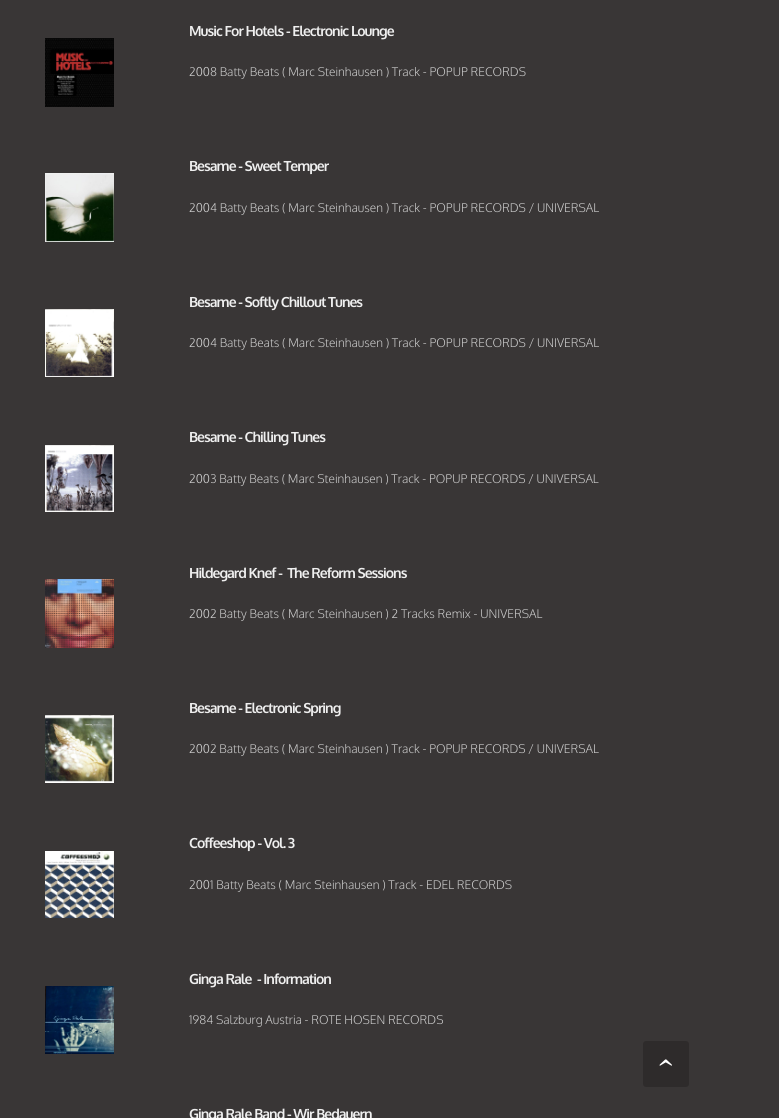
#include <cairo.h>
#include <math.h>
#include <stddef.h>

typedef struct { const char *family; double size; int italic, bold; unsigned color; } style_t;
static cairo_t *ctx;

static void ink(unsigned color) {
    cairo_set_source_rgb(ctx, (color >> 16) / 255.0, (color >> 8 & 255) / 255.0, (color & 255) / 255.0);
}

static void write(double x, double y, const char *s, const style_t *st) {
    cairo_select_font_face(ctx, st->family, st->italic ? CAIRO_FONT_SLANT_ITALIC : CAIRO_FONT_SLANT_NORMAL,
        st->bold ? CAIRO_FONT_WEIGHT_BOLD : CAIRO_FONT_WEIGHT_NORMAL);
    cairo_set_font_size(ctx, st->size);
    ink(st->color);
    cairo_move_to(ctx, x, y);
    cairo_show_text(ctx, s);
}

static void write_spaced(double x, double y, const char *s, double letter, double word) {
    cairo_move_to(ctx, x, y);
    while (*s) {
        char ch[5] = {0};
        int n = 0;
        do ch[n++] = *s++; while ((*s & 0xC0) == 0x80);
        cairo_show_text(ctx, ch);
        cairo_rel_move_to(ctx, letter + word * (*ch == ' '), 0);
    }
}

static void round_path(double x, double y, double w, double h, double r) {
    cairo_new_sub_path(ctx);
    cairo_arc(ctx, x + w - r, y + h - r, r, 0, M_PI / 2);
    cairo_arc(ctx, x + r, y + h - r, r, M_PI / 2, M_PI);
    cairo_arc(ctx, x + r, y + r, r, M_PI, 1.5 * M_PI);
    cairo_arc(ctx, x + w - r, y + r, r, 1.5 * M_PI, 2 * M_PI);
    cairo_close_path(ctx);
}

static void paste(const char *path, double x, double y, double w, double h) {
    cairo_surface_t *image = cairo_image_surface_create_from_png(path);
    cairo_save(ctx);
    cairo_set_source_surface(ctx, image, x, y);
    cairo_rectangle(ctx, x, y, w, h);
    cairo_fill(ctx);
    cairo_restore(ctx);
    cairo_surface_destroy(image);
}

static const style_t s1 = {"Oxygen Light", 12, 0, 0, 0xcccccc};
static const style_t s2 = {"Liberation Serif", 32, 0, 0, 0xffffff};

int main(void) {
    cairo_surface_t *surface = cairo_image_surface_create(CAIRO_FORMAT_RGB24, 779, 1118);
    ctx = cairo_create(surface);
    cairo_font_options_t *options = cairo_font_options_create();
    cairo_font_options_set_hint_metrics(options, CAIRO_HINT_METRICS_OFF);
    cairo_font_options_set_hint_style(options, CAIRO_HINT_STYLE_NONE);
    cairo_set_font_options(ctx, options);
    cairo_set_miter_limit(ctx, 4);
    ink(0x393636);
    cairo_paint(ctx);
    paste("pic1.png", 45, 38, 69, 69);
    cairo_select_font_face(ctx, "Oxygen", CAIRO_FONT_SLANT_NORMAL, CAIRO_FONT_WEIGHT_BOLD);
    cairo_set_font_size(ctx, 14);
    ink(0xefefef);
    write_spaced(189, 36, "Music For Hotels - Electronic Lounge", -1, 0);
    write(189, 76, "2008 Batty Beats ( Marc Steinhausen ) Track - POPUP RECORDS", &s1);
    paste("pic2.png", 45, 173, 69, 69);
    cairo_select_font_face(ctx, "Oxygen", CAIRO_FONT_SLANT_NORMAL, CAIRO_FONT_WEIGHT_BOLD);
    cairo_set_font_size(ctx, 14);
    ink(0xefefef);
    write_spaced(189, 171, "Besame - Sweet Temper", -1, 0);
    write(189, 212, "2004 Batty Beats ( Marc Steinhausen ) Track - POPUP RECORDS / UNIVERSAL", &s1);
    paste("pic3.png", 45, 309, 69, 68);
    cairo_select_font_face(ctx, "Oxygen", CAIRO_FONT_SLANT_NORMAL, CAIRO_FONT_WEIGHT_BOLD);
    cairo_set_font_size(ctx, 14);
    ink(0xefefef);
    write_spaced(189, 307, "Besame - Softly Chillout Tunes", -1, 0);
    write(189, 347, "2004 Batty Beats ( Marc Steinhausen ) Track - POPUP RECORDS / UNIVERSAL", &s1);
    paste("pic4.png", 45, 445, 69, 67);
    cairo_select_font_face(ctx, "Oxygen", CAIRO_FONT_SLANT_NORMAL, CAIRO_FONT_WEIGHT_BOLD);
    cairo_set_font_size(ctx, 14);
    ink(0xefefef);
    write_spaced(189, 442, "Besame - Chilling Tunes", -1, 0);
    write(189, 483, "2003 Batty Beats ( Marc Steinhausen ) Track - POPUP RECORDS / UNIVERSAL", &s1);
    paste("pic5.png", 45, 579, 69, 69);
    cairo_select_font_face(ctx, "Oxygen", CAIRO_FONT_SLANT_NORMAL, CAIRO_FONT_WEIGHT_BOLD);
    cairo_set_font_size(ctx, 14);
    ink(0xefefef);
    write_spaced(189, 578, "Hildegard Knef -  The Reform Sessions", -1, 0);
    write(189, 618, "2002 Batty Beats ( Marc Steinhausen ) 2 Tracks Remix - UNIVERSAL", &s1);
    paste("pic6.png", 45, 715, 69, 68);
    cairo_select_font_face(ctx, "Oxygen", CAIRO_FONT_SLANT_NORMAL, CAIRO_FONT_WEIGHT_BOLD);
    cairo_set_font_size(ctx, 14);
    ink(0xefefef);
    write_spaced(189, 713, "Besame - Electronic Spring", -1, 0);
    write(189, 753, "2002 Batty Beats ( Marc Steinhausen ) Track - POPUP RECORDS / UNIVERSAL", &s1);
    paste("pic7.png", 45, 851, 69, 67);
    cairo_select_font_face(ctx, "Oxygen", CAIRO_FONT_SLANT_NORMAL, CAIRO_FONT_WEIGHT_BOLD);
    cairo_set_font_size(ctx, 14);
    ink(0xefefef);
    write_spaced(189, 848, "Coffeeshop - Vol. 3", -1, 0);
    write(189, 889, "2001 Batty Beats ( Marc Steinhausen ) Track - EDEL RECORDS", &s1);
    paste("pic8.png", 45, 986, 69, 68);
    cairo_select_font_face(ctx, "Oxygen", CAIRO_FONT_SLANT_NORMAL, CAIRO_FONT_WEIGHT_BOLD);
    cairo_set_font_size(ctx, 14);
    ink(0xefefef);
    write_spaced(189, 984, "Ginga Rale  - Information", -1, 0);
    write(189, 1024, "1984 Salzburg Austria - ROTE HOSEN RECORDS", &s1);
    ink(0x2e2b2b);
    round_path(643, 1041, 46, 46, 3);
    cairo_fill(ctx);
    cairo_save(ctx);
    cairo_translate(ctx, 673, 1068);
    cairo_rotate(ctx, -90 * M_PI / 180);
    write(0, 0, "›", &s2);
    cairo_restore(ctx);
    cairo_select_font_face(ctx, "Oxygen", CAIRO_FONT_SLANT_NORMAL, CAIRO_FONT_WEIGHT_BOLD);
    cairo_set_font_size(ctx, 14);
    ink(0xefefef);
    write_spaced(189, 1119, "Ginga Rale Band - Wir Bedauern", -1, 0);
    cairo_surface_write_to_png(surface, "screenshot.png");
    cairo_font_options_destroy(options);
    cairo_destroy(ctx);
    cairo_surface_destroy(surface);
    return 0;
}
